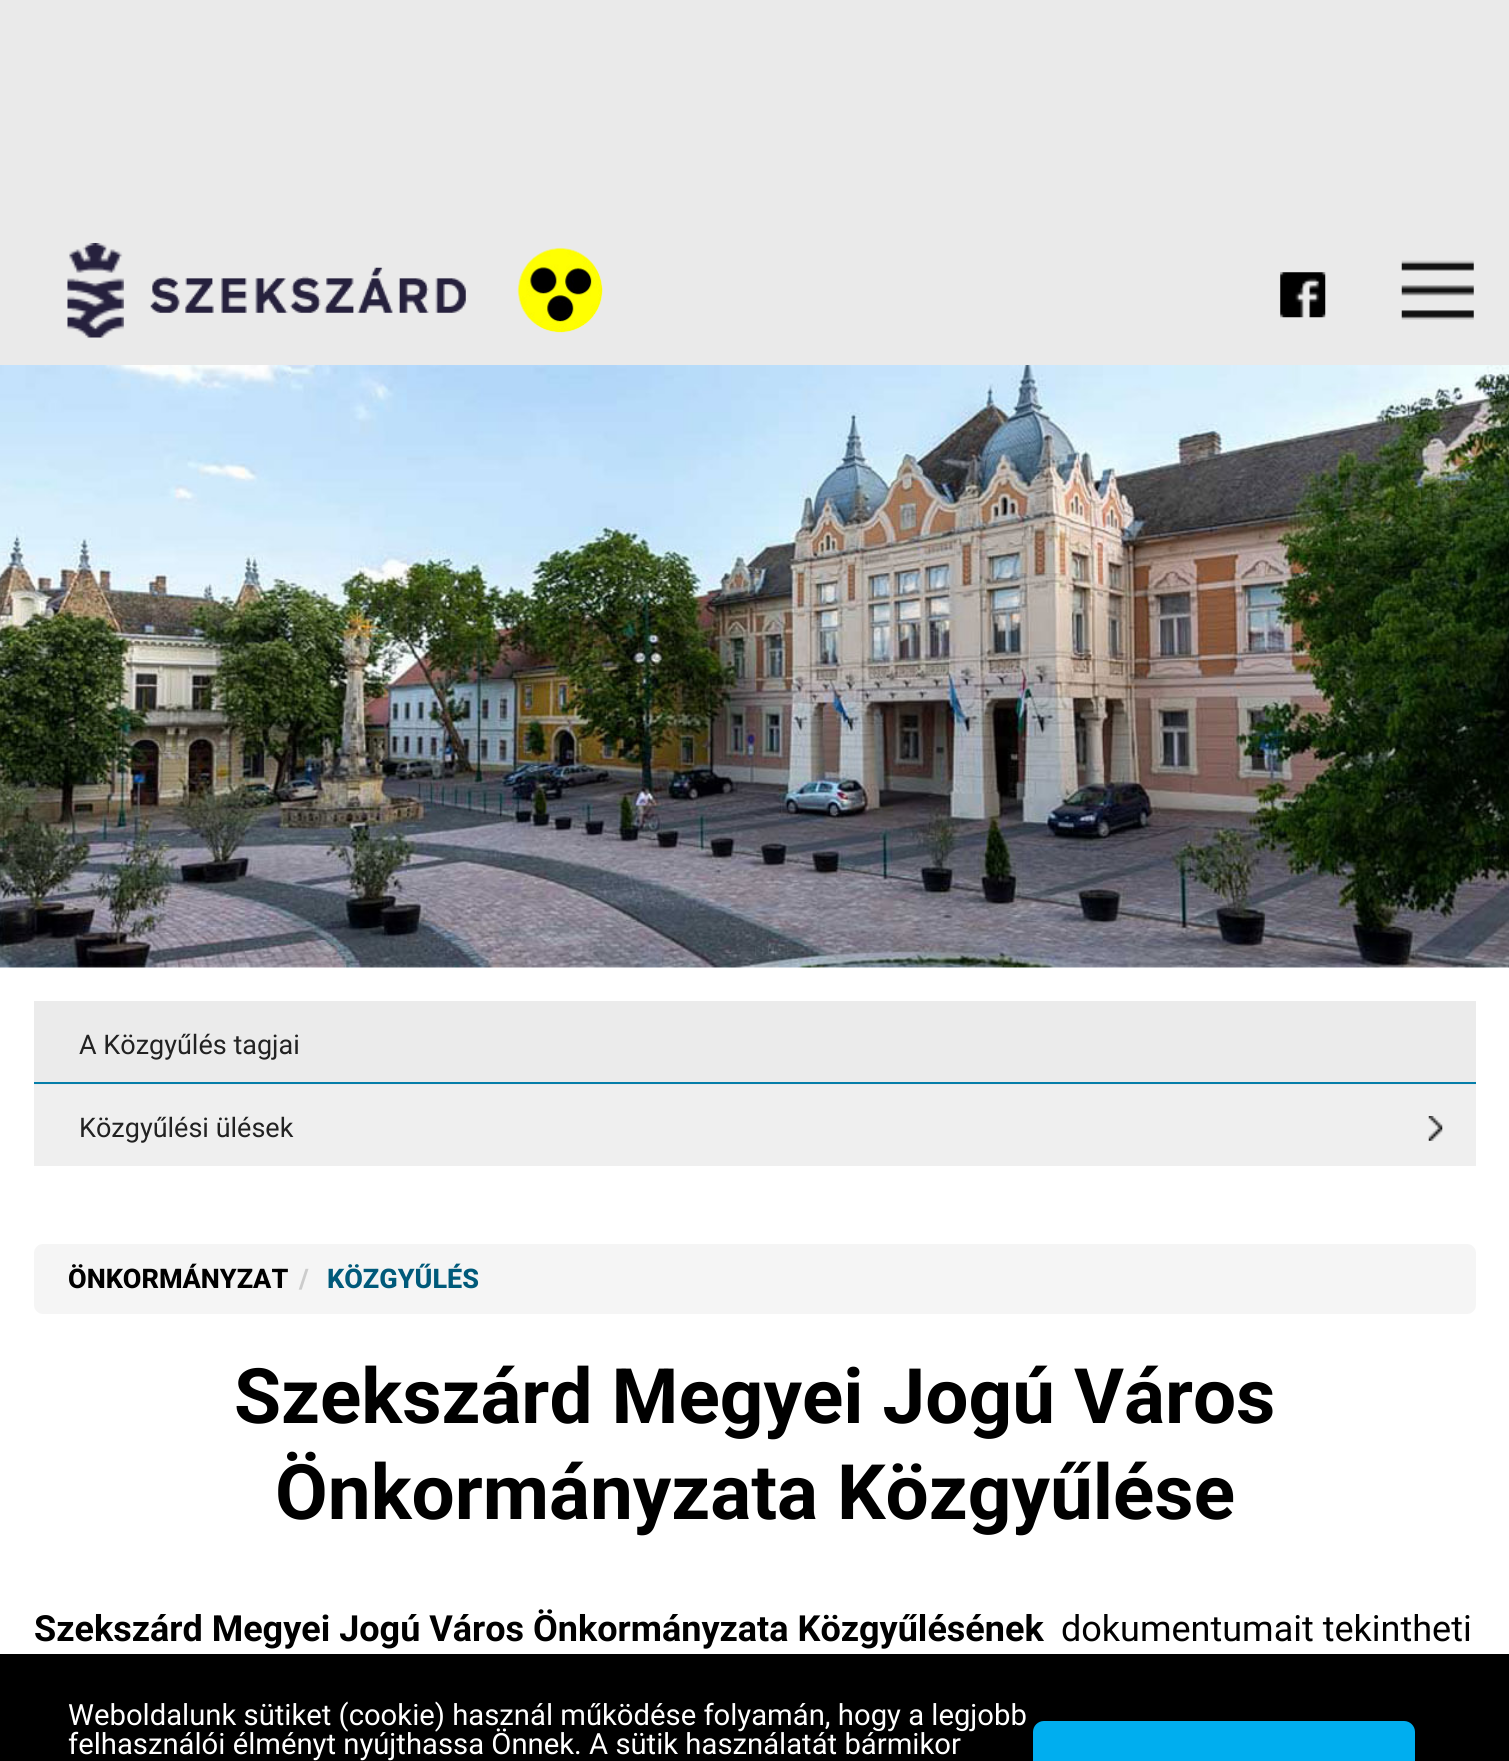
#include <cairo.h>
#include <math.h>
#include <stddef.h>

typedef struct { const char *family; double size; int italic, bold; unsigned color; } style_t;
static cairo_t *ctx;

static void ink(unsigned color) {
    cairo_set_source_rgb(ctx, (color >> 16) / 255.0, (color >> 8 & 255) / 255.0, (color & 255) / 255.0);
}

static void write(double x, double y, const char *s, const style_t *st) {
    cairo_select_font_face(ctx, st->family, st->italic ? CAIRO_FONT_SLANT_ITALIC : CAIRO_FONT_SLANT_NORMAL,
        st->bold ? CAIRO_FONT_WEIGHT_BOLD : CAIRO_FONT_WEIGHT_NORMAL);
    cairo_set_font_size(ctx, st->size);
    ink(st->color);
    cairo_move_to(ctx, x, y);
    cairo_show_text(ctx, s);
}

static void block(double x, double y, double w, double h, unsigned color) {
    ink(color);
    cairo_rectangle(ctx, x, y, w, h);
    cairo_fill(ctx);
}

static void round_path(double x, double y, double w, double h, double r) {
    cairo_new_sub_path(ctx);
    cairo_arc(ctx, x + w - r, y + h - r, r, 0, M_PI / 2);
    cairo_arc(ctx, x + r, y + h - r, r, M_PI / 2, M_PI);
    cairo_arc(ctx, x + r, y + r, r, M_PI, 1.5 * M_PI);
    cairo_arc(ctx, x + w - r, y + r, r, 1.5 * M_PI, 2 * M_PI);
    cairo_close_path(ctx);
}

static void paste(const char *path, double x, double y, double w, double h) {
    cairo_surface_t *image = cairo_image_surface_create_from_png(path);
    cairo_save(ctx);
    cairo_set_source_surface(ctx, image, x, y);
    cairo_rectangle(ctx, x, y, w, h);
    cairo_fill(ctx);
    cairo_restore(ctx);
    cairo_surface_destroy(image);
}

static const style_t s1 = {"Roboto", 27, 0, 0, 0x222222};
static const style_t s2 = {"Roboto ExtraBold", 27, 0, 0, 0x000000};
static const style_t s3 = {"Roboto ExtraBold", 27, 0, 0, 0xcccccc};
static const style_t s4 = {"Roboto ExtraBold", 27, 0, 0, 0x005a7a};
static const style_t s5 = {"Roboto", 76.5, 0, 1, 0x000000};
static const style_t s6 = {"Roboto", 36, 0, 1, 0x000000};
static const style_t s7 = {"Roboto", 36, 0, 0, 0x000000};
static const style_t s8 = {"Roboto", 29.25, 0, 0, 0xffffff};

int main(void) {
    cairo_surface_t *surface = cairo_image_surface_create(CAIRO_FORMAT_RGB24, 1509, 1761);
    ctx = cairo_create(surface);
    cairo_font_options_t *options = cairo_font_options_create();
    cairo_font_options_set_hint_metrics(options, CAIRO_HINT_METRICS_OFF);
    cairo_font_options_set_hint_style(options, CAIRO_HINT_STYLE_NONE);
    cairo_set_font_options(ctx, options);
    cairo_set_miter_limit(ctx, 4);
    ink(0xffffff);
    cairo_paint(ctx);
    block(0, 0, 1509, 365, 0xeaeaea);
    paste("pic1.png", 67, 243, 57, 95);
    paste("pic2.png", 150, 267, 316, 46);
    paste("pic3.png", 517, 247, 86, 86);
    paste("pic4.png", 1280, 272, 46, 46);
    paste("pic5.png", 1401, 260, 73, 60);
    paste("pic6.png", 0, 365, 1509, 603);
    block(34, 1001, 1442, 84, 0xebebeb);
    block(34, 1082, 1442, 2, 0x057ea9);
    write(79, 1054, "A Közgyűlés tagjai", &s1);
    block(34, 1085, 1442, 81, 0xefefef);
    write(79, 1137, "Közgyűlési ülések", &s1);
    paste("pic7.png", 1428, 1116, 15, 25);
    ink(0xf5f5f5);
    round_path(34, 1244, 1442, 70, 9);
    cairo_fill(ctx);
    write(68, 1288, "ÖNKORMÁNYZAT", &s2);
    write(299, 1288, "/", &s3);
    write(327, 1288, "KÖZGYŰLÉS", &s4);
    write(234, 1423, "Szekszárd Megyei Jogú Város", &s5);
    write(275, 1519, "Önkormányzata Közgyűlése", &s5);
    write(34, 1641, "Szekszárd Megyei Jogú Város Önkormányzata Közgyűlésének", &s6);
    write(1061, 1641, "dokumentumait tekintheti", &s7);
    block(0, 1654, 1509, 107, 0x000000);
    write(68, 1725, "Weboldalunk sütiket (cookie) használ működése folyamán, hogy a legjobb", &s8);
    write(68, 1754, "felhasználói élményt nyújthassa Önnek. A sütik használatát bármikor", &s8);
    ink(0x00aeef);
    round_path(1033, 1721, 382, 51, 11);
    cairo_fill(ctx);
    cairo_surface_write_to_png(surface, "screenshot.png");
    cairo_font_options_destroy(options);
    cairo_destroy(ctx);
    cairo_surface_destroy(surface);
    return 0;
}
